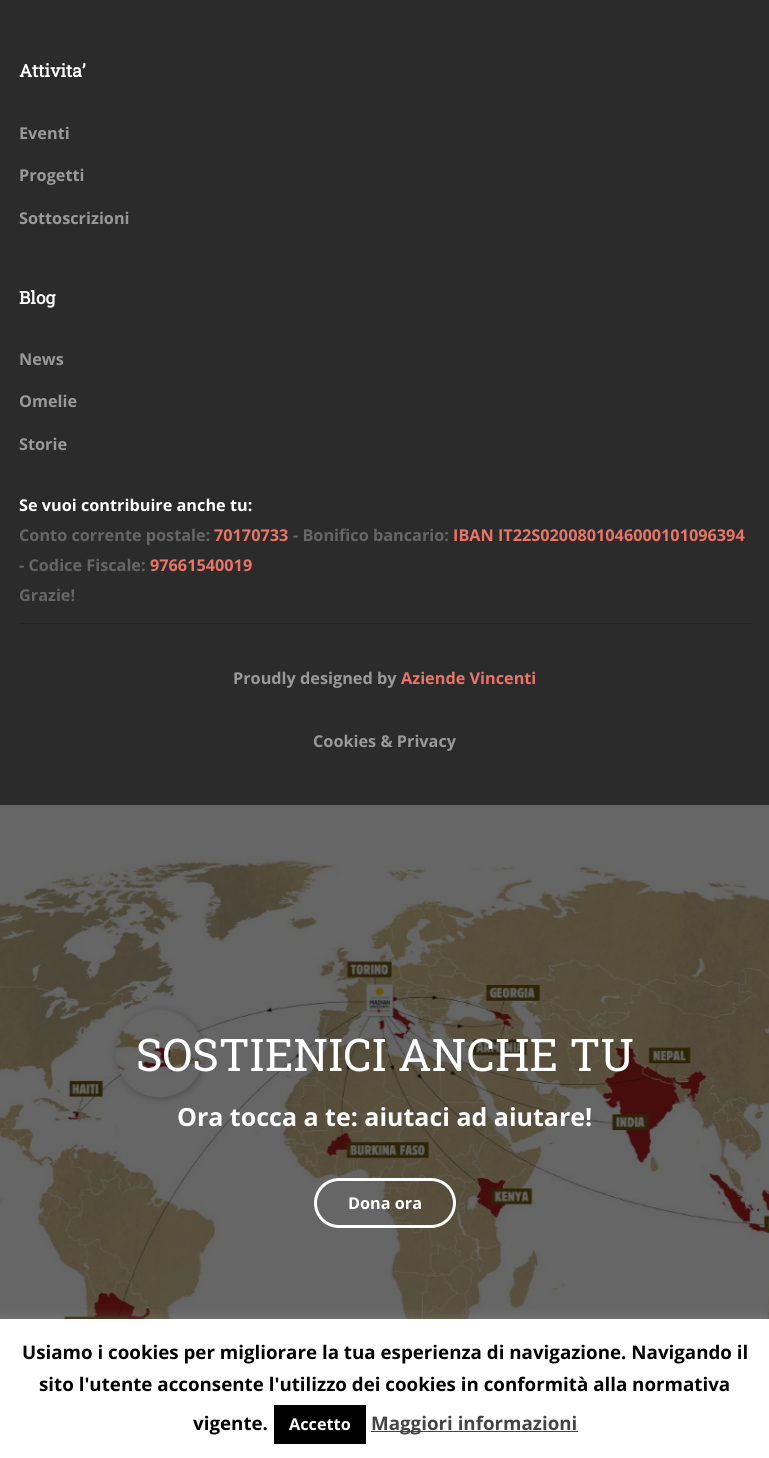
#include <cairo.h>
#include <math.h>
#include <stddef.h>

typedef struct { const char *family; double size; int italic, bold; unsigned color; } style_t;
static cairo_t *ctx;

static void ink(unsigned color) {
    cairo_set_source_rgb(ctx, (color >> 16) / 255.0, (color >> 8 & 255) / 255.0, (color & 255) / 255.0);
}

static void write(double x, double y, const char *s, const style_t *st) {
    cairo_select_font_face(ctx, st->family, st->italic ? CAIRO_FONT_SLANT_ITALIC : CAIRO_FONT_SLANT_NORMAL,
        st->bold ? CAIRO_FONT_WEIGHT_BOLD : CAIRO_FONT_WEIGHT_NORMAL);
    cairo_set_font_size(ctx, st->size);
    ink(st->color);
    cairo_move_to(ctx, x, y);
    cairo_show_text(ctx, s);
}

static void block(double x, double y, double w, double h, unsigned color) {
    ink(color);
    cairo_rectangle(ctx, x, y, w, h);
    cairo_fill(ctx);
}

static void round_path(double x, double y, double w, double h, double r) {
    cairo_new_sub_path(ctx);
    cairo_arc(ctx, x + w - r, y + h - r, r, 0, M_PI / 2);
    cairo_arc(ctx, x + r, y + h - r, r, M_PI / 2, M_PI);
    cairo_arc(ctx, x + r, y + r, r, M_PI, 1.5 * M_PI);
    cairo_arc(ctx, x + w - r, y + r, r, 1.5 * M_PI, 2 * M_PI);
    cairo_close_path(ctx);
}

static void blur_box(double x, double y, double w, double h, double r, double blur, double alpha) {
    cairo_push_group_with_content(ctx, CAIRO_CONTENT_ALPHA);
    cairo_set_operator(ctx, CAIRO_OPERATOR_SOURCE);
    for (int i = 15; i >= -15 && fmin(w, h) + blur * i / 3 > 0; i -= 2) {
        double e = blur * i / 6;
        cairo_set_source_rgba(ctx, 0, 0, 0, alpha * erfc((i - 1) / 8.5) / 2);
        round_path(x - e, y - e, w + 2 * e, h + 2 * e, fmax(0, fmin(r + e + blur * .6, fmin(w, h) / 2 + e)));
        cairo_fill(ctx);
    }
    cairo_pattern_t *soft = cairo_pop_group(ctx);
    cairo_mask(ctx, soft);
    cairo_pattern_destroy(soft);
}

static void paste(const char *path, double x, double y, double w, double h) {
    cairo_surface_t *image = cairo_image_surface_create_from_png(path);
    cairo_save(ctx);
    cairo_set_source_surface(ctx, image, x, y);
    cairo_rectangle(ctx, x, y, w, h);
    cairo_fill(ctx);
    cairo_restore(ctx);
    cairo_surface_destroy(image);
}

static const style_t s1 = {"Roboto Slab", 17.5, 0, 1, 0xffffff};
static const style_t s2 = {"Open Sans", 16.25, 0, 1, 0x999999};
static const style_t s3 = {"Open Sans", 16.25, 0, 1, 0xffffff};
static const style_t s4 = {"Open Sans", 16.25, 0, 1, 0x666666};
static const style_t s5 = {"Open Sans", 16.25, 0, 1, 0xe97468};
static const style_t s6 = {"Roboto Slab", 45, 0, 0, 0xffffff};
static const style_t s7 = {"Open Sans", 25, 0, 1, 0xffffff};
static const style_t s8 = {"Open Sans", 18.75, 0, 1, 0x000000};
static const style_t s9 = {"Open Sans", 18.75, 0, 1, 0x444444};

int main(void) {
    cairo_surface_t *surface = cairo_image_surface_create(CAIRO_FORMAT_RGB24, 769, 1458);
    ctx = cairo_create(surface);
    cairo_font_options_t *options = cairo_font_options_create();
    cairo_font_options_set_hint_metrics(options, CAIRO_HINT_METRICS_OFF);
    cairo_font_options_set_hint_style(options, CAIRO_HINT_STYLE_NONE);
    cairo_set_font_options(ctx, options);
    cairo_set_miter_limit(ctx, 4);
    ink(0x666666);
    cairo_paint(ctx);
    block(0, 0, 769, 805, 0x2b2b2b);
    write(19, 77, "Attivita’", &s1);
    write(19, 139, "Eventi", &s2);
    write(19, 181, "Progetti", &s2);
    write(19, 224, "Sottoscrizioni", &s2);
    write(19, 304, "Blog", &s1);
    write(19, 365, "News", &s2);
    write(19, 407, "Omelie", &s2);
    write(19, 450, "Storie", &s2);
    write(19, 511, "Se vuoi contribuire anche tu:", &s3);
    write(19, 541, "Conto corrente postale:", &s4);
    write(214, 541, "70170733", &s5);
    write(293, 541, "- Bonifico bancario:", &s4);
    write(453, 541, "IBAN IT22S0200801046000101096394", &s5);
    write(19, 571, "- Codice Fiscale:", &s4);
    write(150, 571, "97661540019", &s5);
    write(19, 601, "Grazie!", &s4);
    block(19, 623, 732, 1, 0x242424);
    write(233, 684, "Proudly designed by", &s2);
    write(401, 684, "Aziende Vincenti", &s5);
    write(313, 747, "Cookies & Privacy", &s2);
    paste("pic1.png", 0, 855, 769, 464);
    write(136, 1071, "SOSTIENICI ANCHE TU", &s6);
    write(177, 1126, "Ora tocca a te: aiutaci ad aiutare!", &s7);
    round_path(315.5, 1179.5, 139, 47, 23.5);
    cairo_set_line_width(ctx, 3);
    cairo_stroke(ctx);
    write(348, 1209, "Dona ora", &s3);
    ink(0xacabab);
    blur_box(0, 1318, 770, 140, 0, 6, 0.3);
    block(0, 1319, 769, 139, 0xffffff);
    write(22, 1359, "Usiamo i cookies per migliorare la tua esperienza di navigazione. Navigando il", &s8);
    write(39, 1391, "sito l'utente acconsente l'utilizzo dei cookies in conformità alla normativa", &s8);
    write(193, 1430, "vigente.", &s8);
    block(274, 1405, 92, 39, 0x000000);
    write(289, 1430, "Accetto", &s3);
    block(371, 1431, 207, 1, 0x444444);
    write(371, 1430, "Maggiori informazioni", &s9);
    cairo_surface_write_to_png(surface, "screenshot.png");
    cairo_font_options_destroy(options);
    cairo_destroy(ctx);
    cairo_surface_destroy(surface);
    return 0;
}
